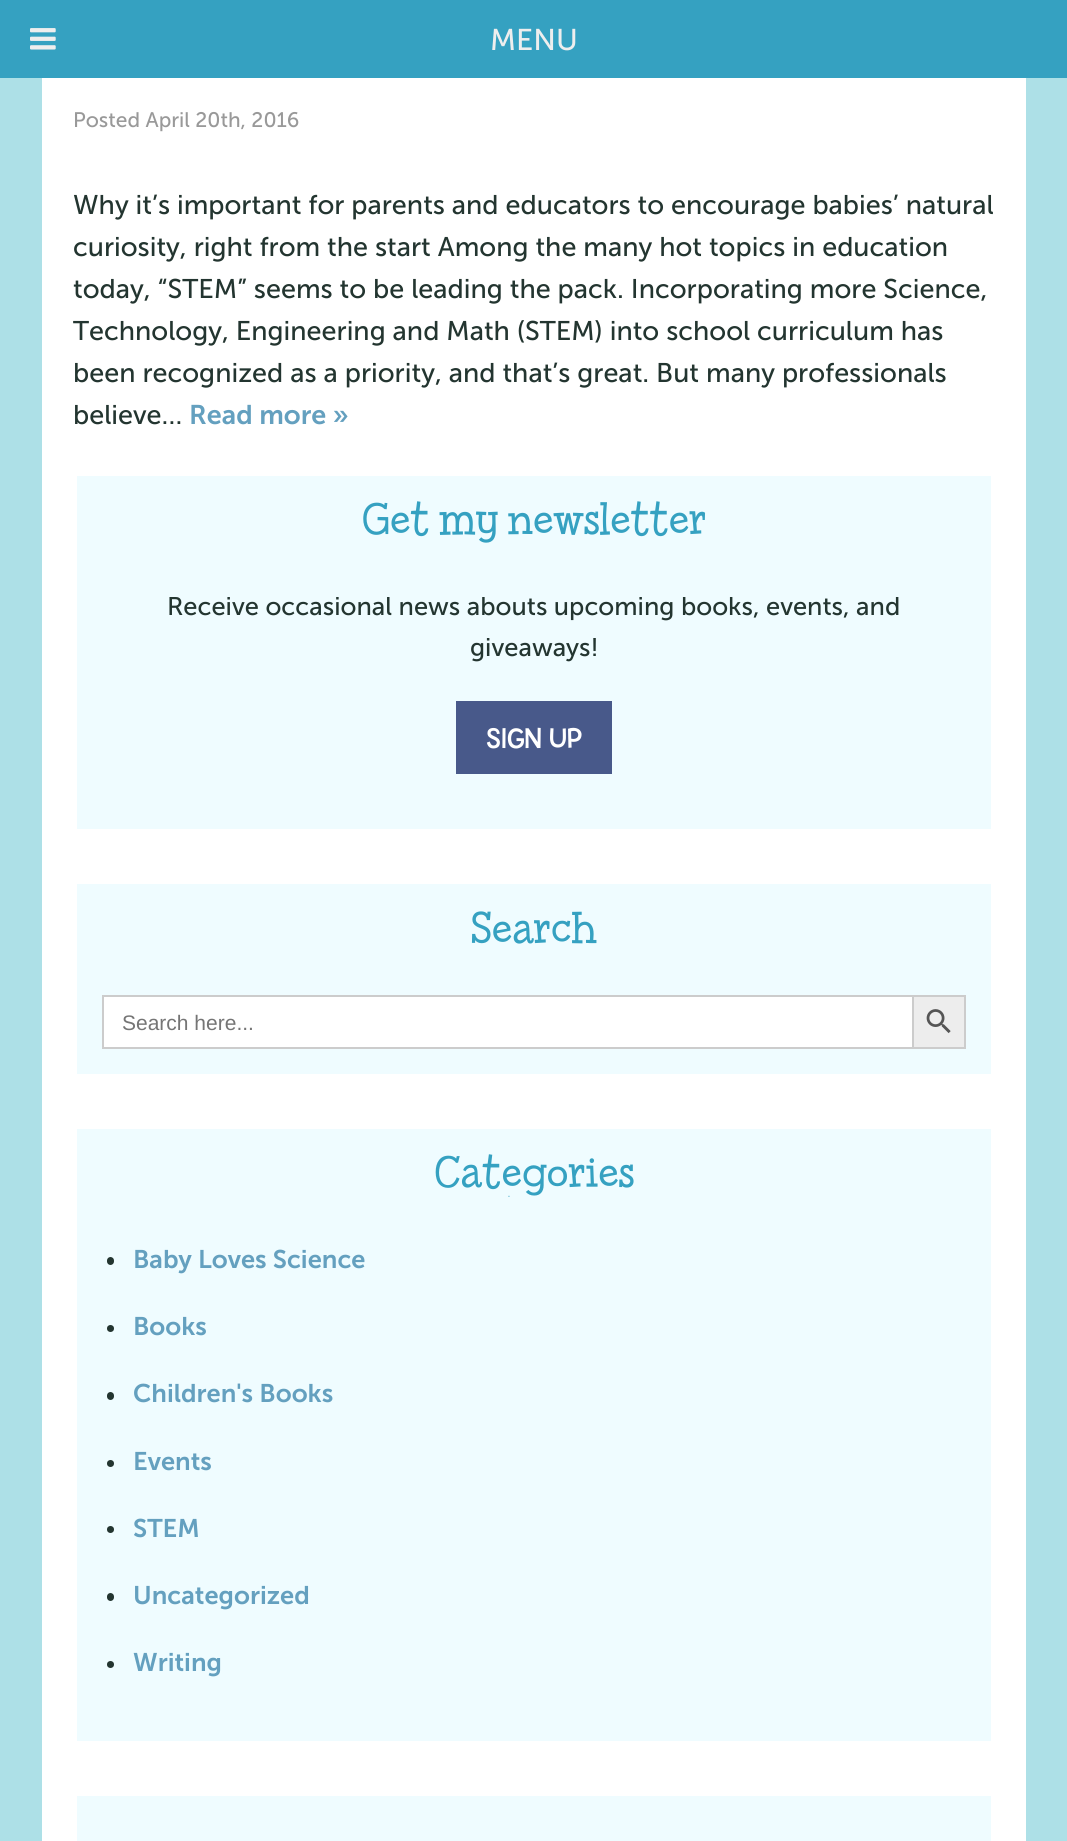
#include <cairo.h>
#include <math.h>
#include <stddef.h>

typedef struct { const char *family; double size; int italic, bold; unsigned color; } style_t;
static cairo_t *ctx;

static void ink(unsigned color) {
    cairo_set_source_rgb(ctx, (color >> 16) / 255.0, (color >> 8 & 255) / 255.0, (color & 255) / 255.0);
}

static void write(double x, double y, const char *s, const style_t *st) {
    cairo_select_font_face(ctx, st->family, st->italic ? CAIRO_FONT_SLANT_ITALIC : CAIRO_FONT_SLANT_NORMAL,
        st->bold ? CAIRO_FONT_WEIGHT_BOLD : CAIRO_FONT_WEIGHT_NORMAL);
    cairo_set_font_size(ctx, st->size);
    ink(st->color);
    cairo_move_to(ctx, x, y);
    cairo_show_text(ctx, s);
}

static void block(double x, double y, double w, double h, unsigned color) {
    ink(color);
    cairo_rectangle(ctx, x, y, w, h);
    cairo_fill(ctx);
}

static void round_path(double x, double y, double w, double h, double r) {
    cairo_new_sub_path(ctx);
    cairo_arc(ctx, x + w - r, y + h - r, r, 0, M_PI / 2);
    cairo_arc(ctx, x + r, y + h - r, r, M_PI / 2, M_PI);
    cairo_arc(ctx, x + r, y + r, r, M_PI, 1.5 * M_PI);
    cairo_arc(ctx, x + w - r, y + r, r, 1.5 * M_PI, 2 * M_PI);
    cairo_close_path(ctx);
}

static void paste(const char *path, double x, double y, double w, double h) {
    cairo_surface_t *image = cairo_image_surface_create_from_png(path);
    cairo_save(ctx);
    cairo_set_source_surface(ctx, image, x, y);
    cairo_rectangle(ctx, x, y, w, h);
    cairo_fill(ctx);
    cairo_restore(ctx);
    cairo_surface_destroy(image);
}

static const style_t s1 = {"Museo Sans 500", 30, 0, 0, 0xeeeeee};
static const style_t s2 = {"Museo Sans 500", 21, 0, 0, 0x999999};
static const style_t s3 = {"Museo Sans 500", 27, 0, 0, 0x233530};
static const style_t s4 = {"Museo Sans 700 SemiBold", 27, 0, 0, 0x64a0bf};
static const style_t s5 = {"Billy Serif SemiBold", 45, 0, 0, 0x35a1c1};
static const style_t s6 = {"Museo Sans 500", 25.5, 0, 0, 0x233530};
static const style_t s7 = {"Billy", 30, 0, 0, 0xffffff};
static const style_t s8 = {"Liberation Sans", 21, 0, 0, 0x757575};
static const style_t s9 = {"Museo Sans 700 SemiBold", 25.5, 0, 0, 0x64a0bf};

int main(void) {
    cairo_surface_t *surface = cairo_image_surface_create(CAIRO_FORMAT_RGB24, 1067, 1841);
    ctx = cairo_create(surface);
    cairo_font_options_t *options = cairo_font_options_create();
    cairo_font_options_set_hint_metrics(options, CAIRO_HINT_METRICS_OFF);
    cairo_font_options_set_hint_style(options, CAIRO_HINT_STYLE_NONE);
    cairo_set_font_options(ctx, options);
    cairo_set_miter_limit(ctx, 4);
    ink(0xade0e7);
    cairo_paint(ctx);
    block(0, 0, 1067, 78, 0x35a1c1);
    paste("pic1.png", 30, 28, 26, 22);
    write(490, 50, "MENU", &s1);
    block(42, 78, 984, 1763, 0xffffff);
    write(73, 127, "Posted April 20th, 2016", &s2);
    write(73, 214, "Why it’s important for parents and educators to encourage babies’ natural", &s3);
    write(73, 256, "curiosity, right from the start Among the many hot topics in education", &s3);
    write(73, 298, "today, “STEM” seems to be leading the pack. Incorporating more Science,", &s3);
    write(73, 340, "Technology, Engineering and Math (STEM) into school curriculum has", &s3);
    write(73, 382, "been recognized as a priority, and that’s great. But many professionals", &s3);
    write(73, 424, "believe…", &s3);
    write(189, 424, "Read more »", &s4);
    block(77, 476, 914, 353, 0xeffcff);
    write(362, 534, "Get my newsletter", &s5);
    write(167, 615, "Receive occasional news abouts upcoming books, events, and", &s6);
    write(470, 656, "giveaways!", &s6);
    block(456, 701, 156, 73, 0x48598a);
    write(486, 748, "SIGN UP", &s7);
    block(77, 884, 914, 190, 0xeffcff);
    write(471, 943, "Search", &s5);
    block(104, 997, 808, 50, 0xffffff);
    block(102, 995, 810, 2, 0xcccccc);
    block(102, 1047, 810, 2, 0xcccccc);
    block(102, 995, 2, 54, 0xcccccc);
    write(122, 1030, "Search here...", &s8);
    ink(0xededed);
    cairo_rectangle(ctx, 913, 996, 52, 52);
    cairo_fill_preserve(ctx);
    ink(0xcccccc);
    cairo_stroke(ctx);
    paste("pic2.png", 926, 1009, 25, 25);
    block(77, 1129, 914, 612, 0xeffcff);
    write(434, 1187, "Categories", &s5);
    ink(0x233530);
    round_path(107, 1257, 7, 8, 3.5);
    cairo_fill(ctx);
    write(133, 1268, "Baby Loves Science", &s9);
    ink(0x233530);
    cairo_new_path(ctx);
    cairo_arc(ctx, 110.5, 1328.5, 3.5, 0, 2 * M_PI);
    cairo_fill(ctx);
    write(133, 1335, "Books", &s9);
    ink(0x233530);
    round_path(107, 1392, 7, 8, 3.5);
    cairo_fill(ctx);
    write(133, 1402, "Children's Books", &s9);
    ink(0x233530);
    cairo_new_path(ctx);
    cairo_arc(ctx, 110.5, 1463.5, 3.5, 0, 2 * M_PI);
    cairo_fill(ctx);
    write(133, 1470, "Events", &s9);
    ink(0x233530);
    cairo_new_path(ctx);
    cairo_arc(ctx, 110.5, 1529.5, 3.5, 0, 2 * M_PI);
    cairo_fill(ctx);
    write(133, 1537, "STEM", &s9);
    ink(0x233530);
    round_path(107, 1593, 7, 8, 3.5);
    cairo_fill(ctx);
    write(133, 1604, "Uncategorized", &s9);
    ink(0x233530);
    cairo_new_path(ctx);
    cairo_arc(ctx, 110.5, 1664.5, 3.5, 0, 2 * M_PI);
    cairo_fill(ctx);
    write(133, 1671, "Writing", &s9);
    block(77, 1796, 914, 45, 0xeffcff);
    cairo_surface_write_to_png(surface, "screenshot.png");
    cairo_font_options_destroy(options);
    cairo_destroy(ctx);
    cairo_surface_destroy(surface);
    return 0;
}
